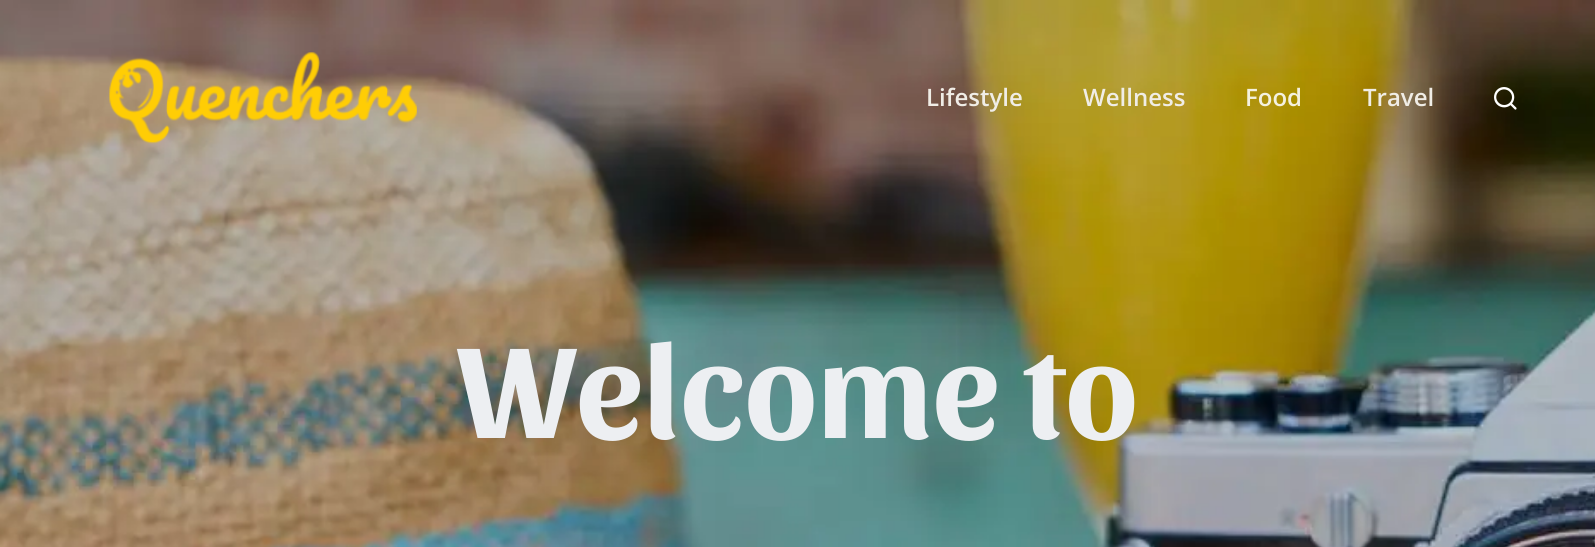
#include <cairo.h>
#include <math.h>
#include <stddef.h>

typedef struct { const char *family; double size; int italic, bold; unsigned color; } style_t;
static cairo_t *ctx;

static void ink(unsigned color) {
    cairo_set_source_rgb(ctx, (color >> 16) / 255.0, (color >> 8 & 255) / 255.0, (color & 255) / 255.0);
}

static void write(double x, double y, const char *s, const style_t *st) {
    cairo_select_font_face(ctx, st->family, st->italic ? CAIRO_FONT_SLANT_ITALIC : CAIRO_FONT_SLANT_NORMAL,
        st->bold ? CAIRO_FONT_WEIGHT_BOLD : CAIRO_FONT_WEIGHT_NORMAL);
    cairo_set_font_size(ctx, st->size);
    ink(st->color);
    cairo_move_to(ctx, x, y);
    cairo_show_text(ctx, s);
}

static void paste(const char *path, double x, double y, double w, double h) {
    cairo_surface_t *image = cairo_image_surface_create_from_png(path);
    cairo_save(ctx);
    cairo_set_source_surface(ctx, image, x, y);
    cairo_rectangle(ctx, x, y, w, h);
    cairo_fill(ctx);
    cairo_restore(ctx);
    cairo_surface_destroy(image);
}

static const style_t s1 = {"Open Sans SemiBold", 24, 0, 0, 0xf0ede6};
static const style_t s2 = {"Open Sans SemiBold", 24, 0, 0, 0xf4f1df};
static const style_t s3 = {"Sansita", 135, 0, 1, 0xedeff2};

int main(void) {
    cairo_surface_t *surface = cairo_image_surface_create(CAIRO_FORMAT_RGB24, 1595, 547);
    ctx = cairo_create(surface);
    cairo_font_options_t *options = cairo_font_options_create();
    cairo_font_options_set_hint_metrics(options, CAIRO_HINT_METRICS_OFF);
    cairo_font_options_set_hint_style(options, CAIRO_HINT_STYLE_NONE);
    cairo_set_font_options(ctx, options);
    cairo_set_miter_limit(ctx, 4);
    ink(0xffffff);
    cairo_paint(ctx);
    paste("pic3.png", 0, 0, 1595, 547);
    paste("pic1.png", 109, 52, 308, 92);
    write(926, 106, "Lifestyle", &s1);
    write(1083, 106, "Wellness", &s1);
    write(1245, 106, "Food", &s2);
    write(1363, 106, "Travel", &s1);
    paste("pic2.png", 1494, 87, 23, 23);
    write(457, 438, "Welcome to", &s3);
    cairo_surface_write_to_png(surface, "screenshot.png");
    cairo_font_options_destroy(options);
    cairo_destroy(ctx);
    cairo_surface_destroy(surface);
    return 0;
}
